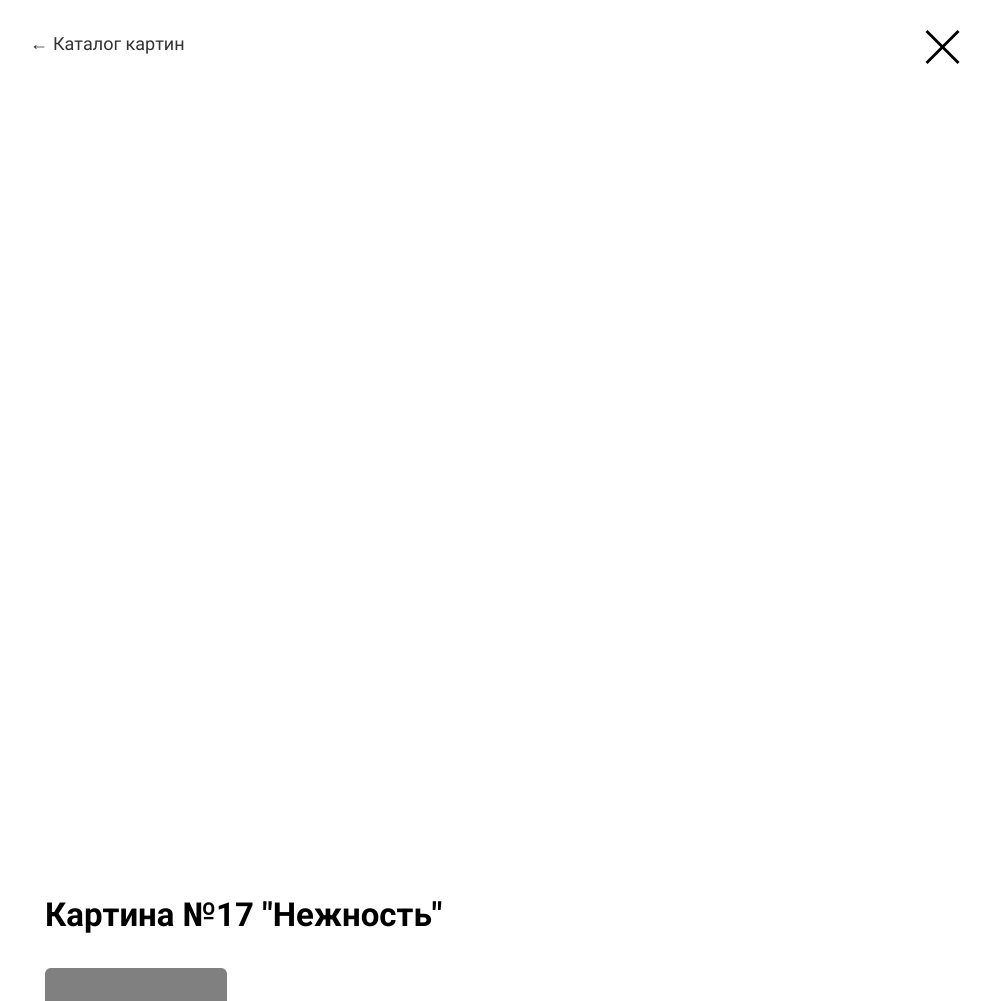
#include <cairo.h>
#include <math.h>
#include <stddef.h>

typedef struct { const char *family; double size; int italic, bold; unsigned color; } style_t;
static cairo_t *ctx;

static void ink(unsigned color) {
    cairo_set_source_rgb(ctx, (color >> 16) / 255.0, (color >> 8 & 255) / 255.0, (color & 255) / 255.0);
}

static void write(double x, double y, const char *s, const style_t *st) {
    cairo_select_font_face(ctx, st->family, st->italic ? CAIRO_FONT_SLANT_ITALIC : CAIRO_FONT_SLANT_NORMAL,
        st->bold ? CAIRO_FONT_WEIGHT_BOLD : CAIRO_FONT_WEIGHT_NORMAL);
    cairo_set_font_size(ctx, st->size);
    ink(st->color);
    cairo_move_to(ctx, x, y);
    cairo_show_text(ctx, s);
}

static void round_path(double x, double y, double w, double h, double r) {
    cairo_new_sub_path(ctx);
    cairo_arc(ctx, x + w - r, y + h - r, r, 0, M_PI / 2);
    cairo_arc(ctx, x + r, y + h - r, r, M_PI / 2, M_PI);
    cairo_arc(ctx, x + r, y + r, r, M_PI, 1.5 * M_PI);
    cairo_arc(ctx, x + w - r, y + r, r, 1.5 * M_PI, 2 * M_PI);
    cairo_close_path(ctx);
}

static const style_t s1 = {"Liberation Sans", 18, 0, 0, 0x333333};
static const style_t s2 = {"Roboto", 18, 0, 0, 0x333333};
static const style_t s3 = {"Roboto", 33, 0, 1, 0x000000};

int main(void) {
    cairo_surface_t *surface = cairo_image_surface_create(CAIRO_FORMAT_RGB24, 990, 1001);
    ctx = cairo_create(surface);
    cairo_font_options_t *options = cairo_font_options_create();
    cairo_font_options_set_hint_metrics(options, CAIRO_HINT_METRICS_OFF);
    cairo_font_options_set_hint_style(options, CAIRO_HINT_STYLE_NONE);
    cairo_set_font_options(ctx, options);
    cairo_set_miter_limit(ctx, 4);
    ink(0xffffff);
    cairo_paint(ctx);
    write(30, 50, "←", &s1);
    write(53, 50, "Каталог картин", &s2);
    ink(0x000000);
    cairo_set_fill_rule(ctx, CAIRO_FILL_RULE_EVEN_ODD);
    cairo_new_path(ctx);
    cairo_move_to(ctx, 925.5, 32);
    cairo_line_to(ctx, 927.5, 30);
    cairo_line_to(ctx, 959.5, 62);
    cairo_line_to(ctx, 957.5, 64);
    cairo_close_path(ctx);
    cairo_fill(ctx);
    cairo_new_path(ctx);
    cairo_move_to(ctx, 957.5, 30);
    cairo_line_to(ctx, 959.5, 32);
    cairo_line_to(ctx, 927.5, 64);
    cairo_line_to(ctx, 925.5, 62);
    cairo_close_path(ctx);
    cairo_fill(ctx);
    write(45, 926, "Картина №17 \"Нежность\"", &s3);
    ink(0x808080);
    round_path(45, 968, 182, 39, 6);
    cairo_fill(ctx);
    cairo_surface_write_to_png(surface, "screenshot.png");
    cairo_font_options_destroy(options);
    cairo_destroy(ctx);
    cairo_surface_destroy(surface);
    return 0;
}
